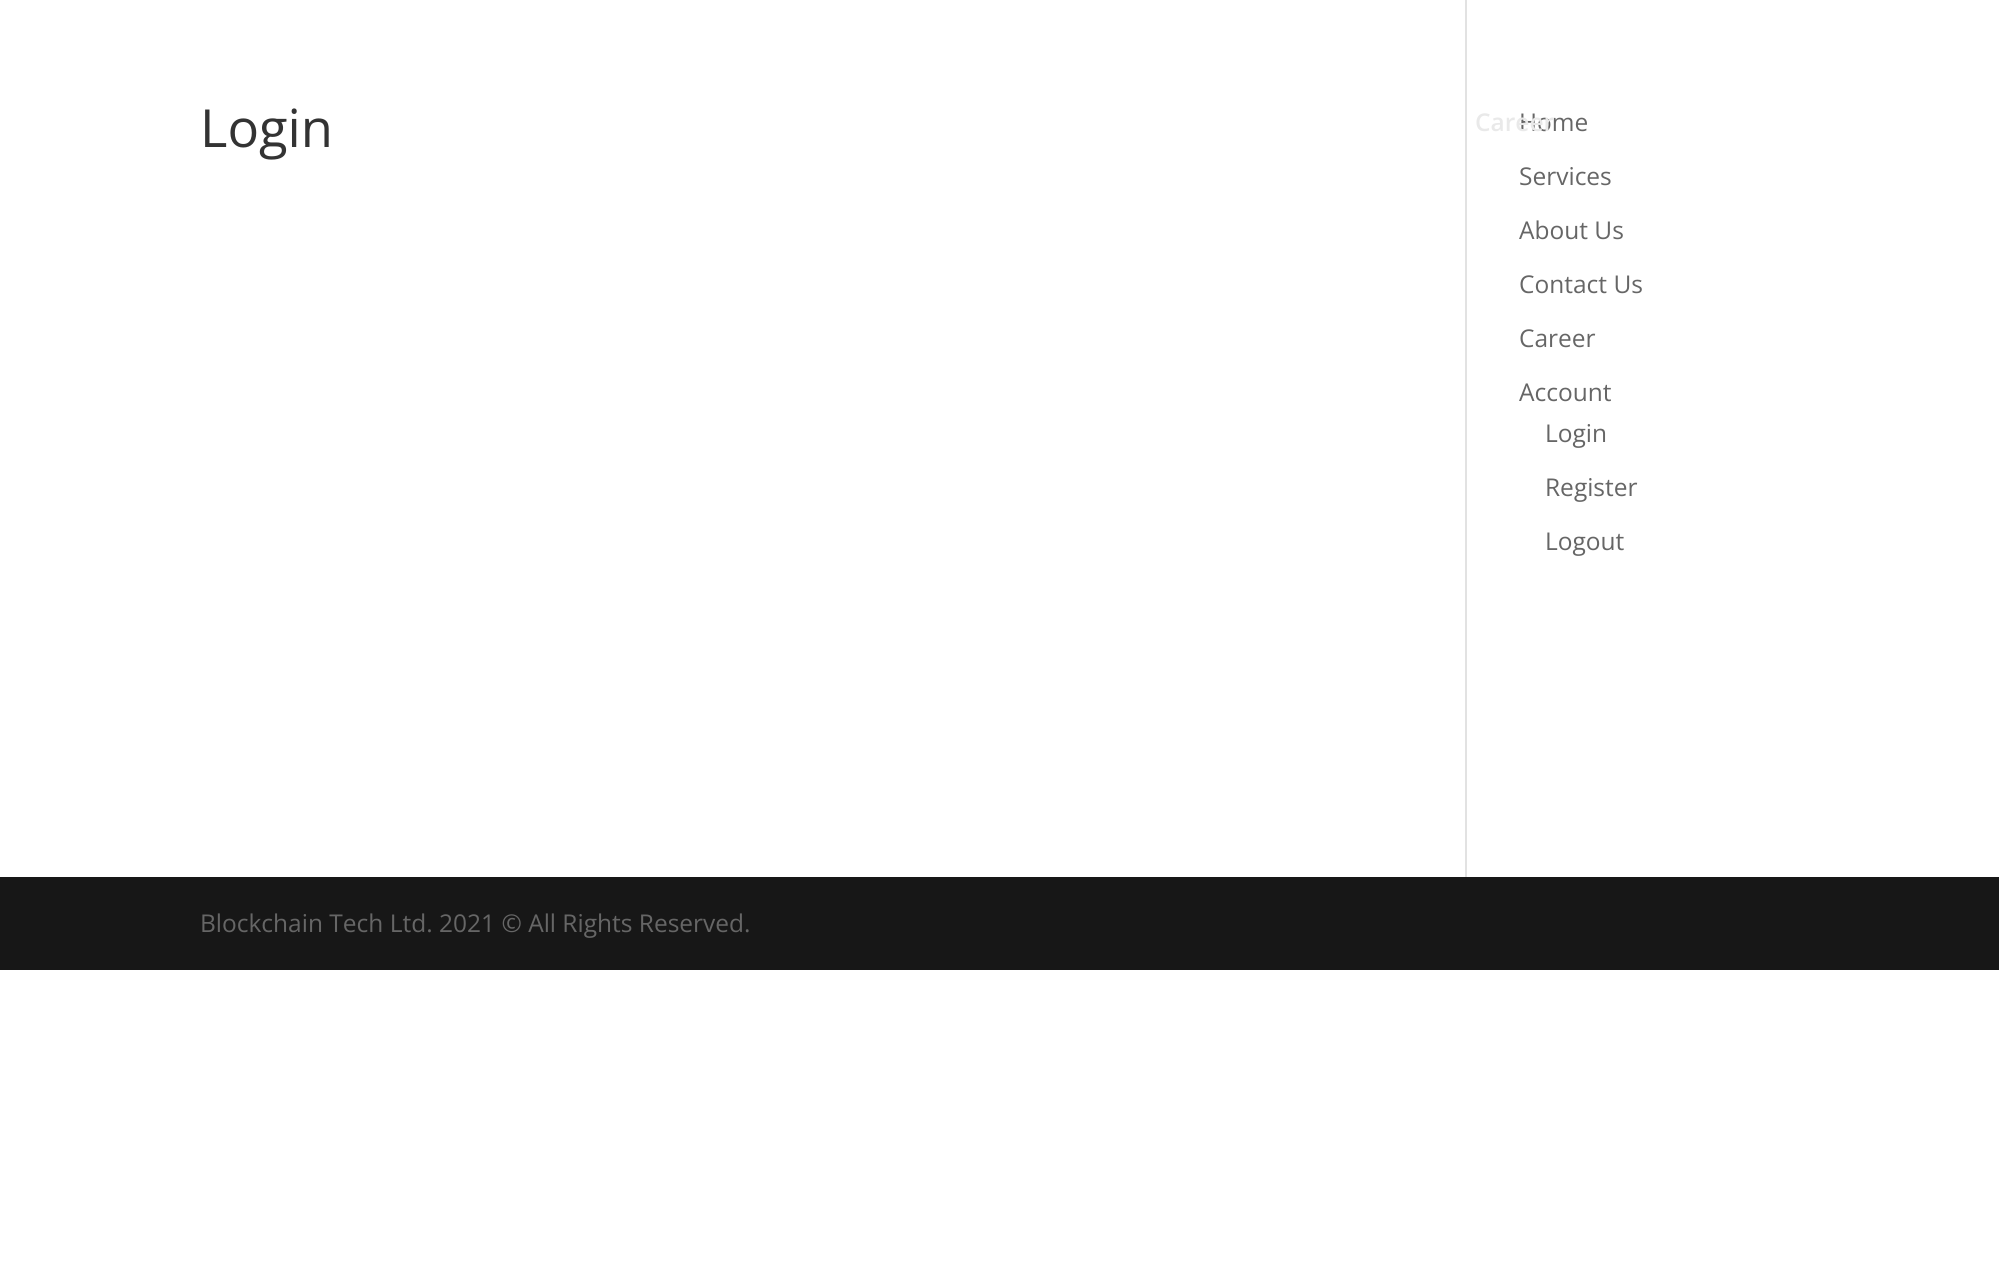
#include <cairo.h>
#include <math.h>
#include <stddef.h>

typedef struct { const char *family; double size; int italic, bold; unsigned color; } style_t;
static cairo_t *ctx;

static void ink(unsigned color) {
    cairo_set_source_rgb(ctx, (color >> 16) / 255.0, (color >> 8 & 255) / 255.0, (color & 255) / 255.0);
}

static void write(double x, double y, const char *s, const style_t *st) {
    cairo_select_font_face(ctx, st->family, st->italic ? CAIRO_FONT_SLANT_ITALIC : CAIRO_FONT_SLANT_NORMAL,
        st->bold ? CAIRO_FONT_WEIGHT_BOLD : CAIRO_FONT_WEIGHT_NORMAL);
    cairo_set_font_size(ctx, st->size);
    ink(st->color);
    cairo_move_to(ctx, x, y);
    cairo_show_text(ctx, s);
}

static void block(double x, double y, double w, double h, unsigned color) {
    ink(color);
    cairo_rectangle(ctx, x, y, w, h);
    cairo_fill(ctx);
}

static const style_t s1 = {"Open Sans", 52.5, 0, 0, 0x333333};
static const style_t s2 = {"Open Sans", 24.5, 0, 0, 0x666666};
static const style_t s3 = {"Open Sans SemiBold", 24.5, 0, 0, 0xe9e9e9};

int main(void) {
    cairo_surface_t *surface = cairo_image_surface_create(CAIRO_FORMAT_RGB24, 1999, 1271);
    ctx = cairo_create(surface);
    cairo_font_options_t *options = cairo_font_options_create();
    cairo_font_options_set_hint_metrics(options, CAIRO_HINT_METRICS_OFF);
    cairo_font_options_set_hint_style(options, CAIRO_HINT_STYLE_NONE);
    cairo_set_font_options(ctx, options);
    cairo_set_miter_limit(ctx, 4);
    ink(0xffffff);
    cairo_paint(ctx);
    block(1465, 0, 2, 877, 0xe2e2e2);
    write(200, 147, "Login", &s1);
    write(1519, 131, "Home", &s2);
    write(1519, 185, "Services", &s2);
    write(1519, 239, "About Us", &s2);
    write(1519, 293, "Contact Us", &s2);
    write(1519, 347, "Career", &s2);
    write(1519, 401, "Account", &s2);
    write(1545, 442, "Login", &s2);
    write(1545, 496, "Register", &s2);
    write(1545, 550, "Logout", &s2);
    block(0, 877, 1999, 93, 0x171717);
    write(200, 932, "Blockchain Tech Ltd. 2021 © All Rights Reserved.", &s2);
    write(1475, 131, "Career", &s3);
    cairo_surface_write_to_png(surface, "screenshot.png");
    cairo_font_options_destroy(options);
    cairo_destroy(ctx);
    cairo_surface_destroy(surface);
    return 0;
}
